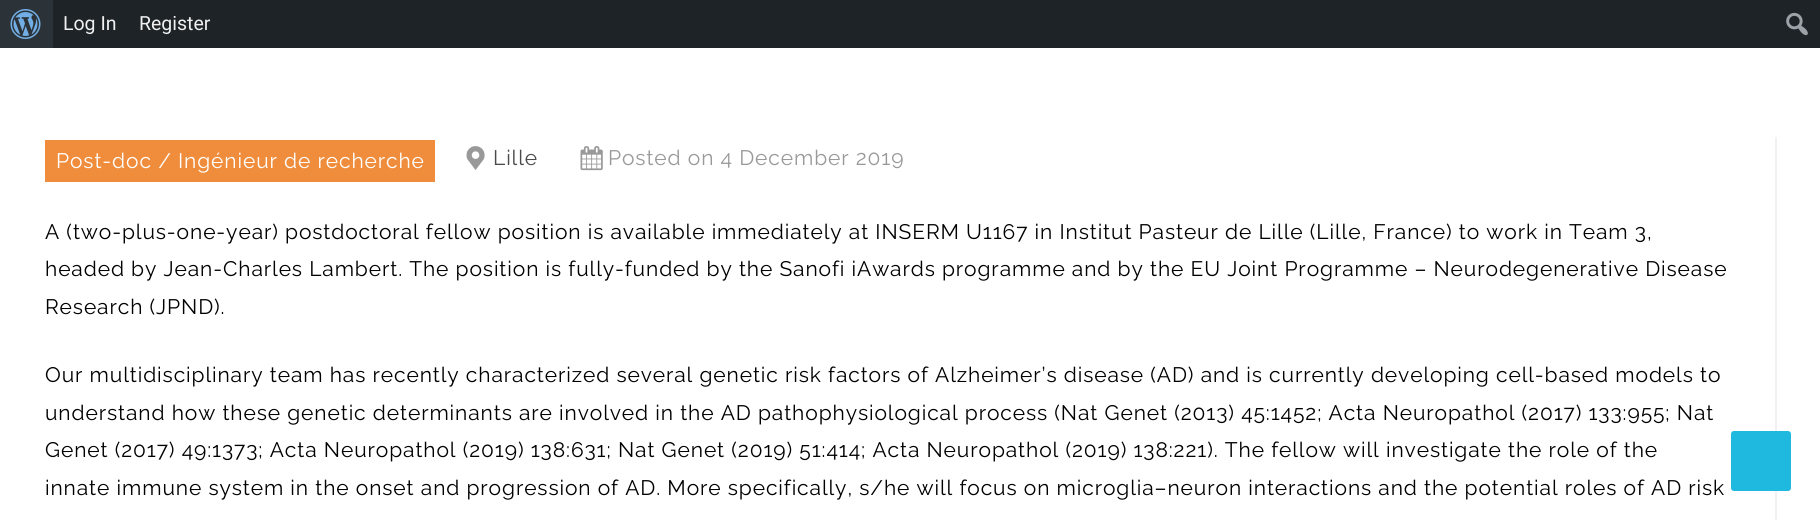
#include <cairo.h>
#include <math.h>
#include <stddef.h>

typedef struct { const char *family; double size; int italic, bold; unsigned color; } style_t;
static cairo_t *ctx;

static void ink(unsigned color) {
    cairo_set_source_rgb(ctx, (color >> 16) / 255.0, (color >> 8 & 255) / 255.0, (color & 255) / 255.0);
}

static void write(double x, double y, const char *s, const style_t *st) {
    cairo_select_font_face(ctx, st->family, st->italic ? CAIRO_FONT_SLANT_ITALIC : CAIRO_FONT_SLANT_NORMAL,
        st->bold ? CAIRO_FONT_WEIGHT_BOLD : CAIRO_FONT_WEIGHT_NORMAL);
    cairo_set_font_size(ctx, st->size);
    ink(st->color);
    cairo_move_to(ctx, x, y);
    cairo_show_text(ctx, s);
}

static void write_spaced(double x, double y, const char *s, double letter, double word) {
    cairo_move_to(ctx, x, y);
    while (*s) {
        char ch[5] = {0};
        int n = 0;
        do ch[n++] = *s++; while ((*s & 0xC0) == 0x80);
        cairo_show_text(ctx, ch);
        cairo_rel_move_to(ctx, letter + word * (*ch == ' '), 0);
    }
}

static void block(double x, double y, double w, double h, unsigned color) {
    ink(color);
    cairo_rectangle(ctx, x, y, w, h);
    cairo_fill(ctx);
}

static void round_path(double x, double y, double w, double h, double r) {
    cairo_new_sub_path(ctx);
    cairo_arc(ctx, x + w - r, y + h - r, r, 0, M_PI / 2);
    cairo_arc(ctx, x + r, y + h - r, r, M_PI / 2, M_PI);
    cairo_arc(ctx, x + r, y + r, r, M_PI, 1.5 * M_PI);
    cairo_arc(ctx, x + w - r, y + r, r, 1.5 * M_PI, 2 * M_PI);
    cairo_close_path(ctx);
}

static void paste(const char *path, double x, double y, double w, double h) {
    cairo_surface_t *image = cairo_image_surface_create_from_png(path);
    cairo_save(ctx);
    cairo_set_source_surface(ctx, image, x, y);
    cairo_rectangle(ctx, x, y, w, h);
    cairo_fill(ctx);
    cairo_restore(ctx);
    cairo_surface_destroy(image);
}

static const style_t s1 = {"Roboto", 19.5, 0, 0, 0xf0f0f1};

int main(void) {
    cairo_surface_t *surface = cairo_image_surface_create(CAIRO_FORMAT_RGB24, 1820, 520);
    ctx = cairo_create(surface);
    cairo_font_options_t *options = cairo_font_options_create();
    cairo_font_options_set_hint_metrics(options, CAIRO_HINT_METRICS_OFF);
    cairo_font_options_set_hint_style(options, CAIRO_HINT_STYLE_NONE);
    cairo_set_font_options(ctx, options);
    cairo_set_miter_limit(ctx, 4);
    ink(0xffffff);
    cairo_paint(ctx);
    block(53, 0, 1767, 48, 0x1d2327);
    block(0, 0, 53, 48, 0x2c3338);
    paste("pic1.png", 10, 9, 31, 30);
    write(63, 30, "Log In", &s1);
    write(139, 30, "Register", &s1);
    paste("pic2.png", 1786, 12, 22, 24);
    block(1775, 137, 2, 383, 0xf1f1f1);
    block(45, 140, 390, 42, 0xf08d3c);
    cairo_select_font_face(ctx, "Raleway", CAIRO_FONT_SLANT_NORMAL, CAIRO_FONT_WEIGHT_NORMAL);
    cairo_set_font_size(ctx, 21);
    ink(0xffffff);
    write_spaced(56, 168, "Post-doc / Ingénieur de recherche", 0.9, 0);
    paste("pic3.png", 466, 146, 19, 24);
    ink(0x4a4a4a);
    write_spaced(493, 165, "Lille", 0.9, 0);
    paste("pic4.png", 580, 146, 23, 25);
    ink(0x999999);
    write_spaced(608, 165, "Posted on 4 December 2019", 0.9, 0);
    ink(0x000000);
    write_spaced(45, 239, "A (two-plus-one-year) postdoctoral fellow position is available immediately at INSERM U1167 in Institut Pasteur de Lille (Lille, France) to work in Team 3,", 0.9, 0);
    write_spaced(45, 276, "headed by Jean-Charles Lambert. The position is fully-funded by the Sanofi iAwards programme and by the EU Joint Programme – Neurodegenerative Disease", 0.9, 0);
    write_spaced(45, 314, "Research (JPND).", 0.9, 0);
    write_spaced(45, 382, "Our multidisciplinary team has recently characterized several genetic risk factors of Alzheimer’s disease (AD) and is currently developing cell-based models to", 0.9, 0);
    write_spaced(45, 420, "understand how these genetic determinants are involved in the AD pathophysiological process (Nat Genet (2013) 45:1452; Acta Neuropathol (2017) 133:955; Nat", 0.9, 0);
    write_spaced(45, 457, "Genet (2017) 49:1373; Acta Neuropathol (2019) 138:631; Nat Genet (2019) 51:414; Acta Neuropathol (2019) 138:221). The fellow will investigate the role of the", 0.9, 0);
    write_spaced(45, 495, "innate immune system in the onset and progression of AD. More specifically, s/he will focus on microglia–neuron interactions and the potential roles of AD risk", 0.9, 0);
    ink(0x1fb9e0);
    round_path(1731, 431, 60, 60, 3);
    cairo_fill(ctx);
    cairo_surface_write_to_png(surface, "screenshot.png");
    cairo_font_options_destroy(options);
    cairo_destroy(ctx);
    cairo_surface_destroy(surface);
    return 0;
}
